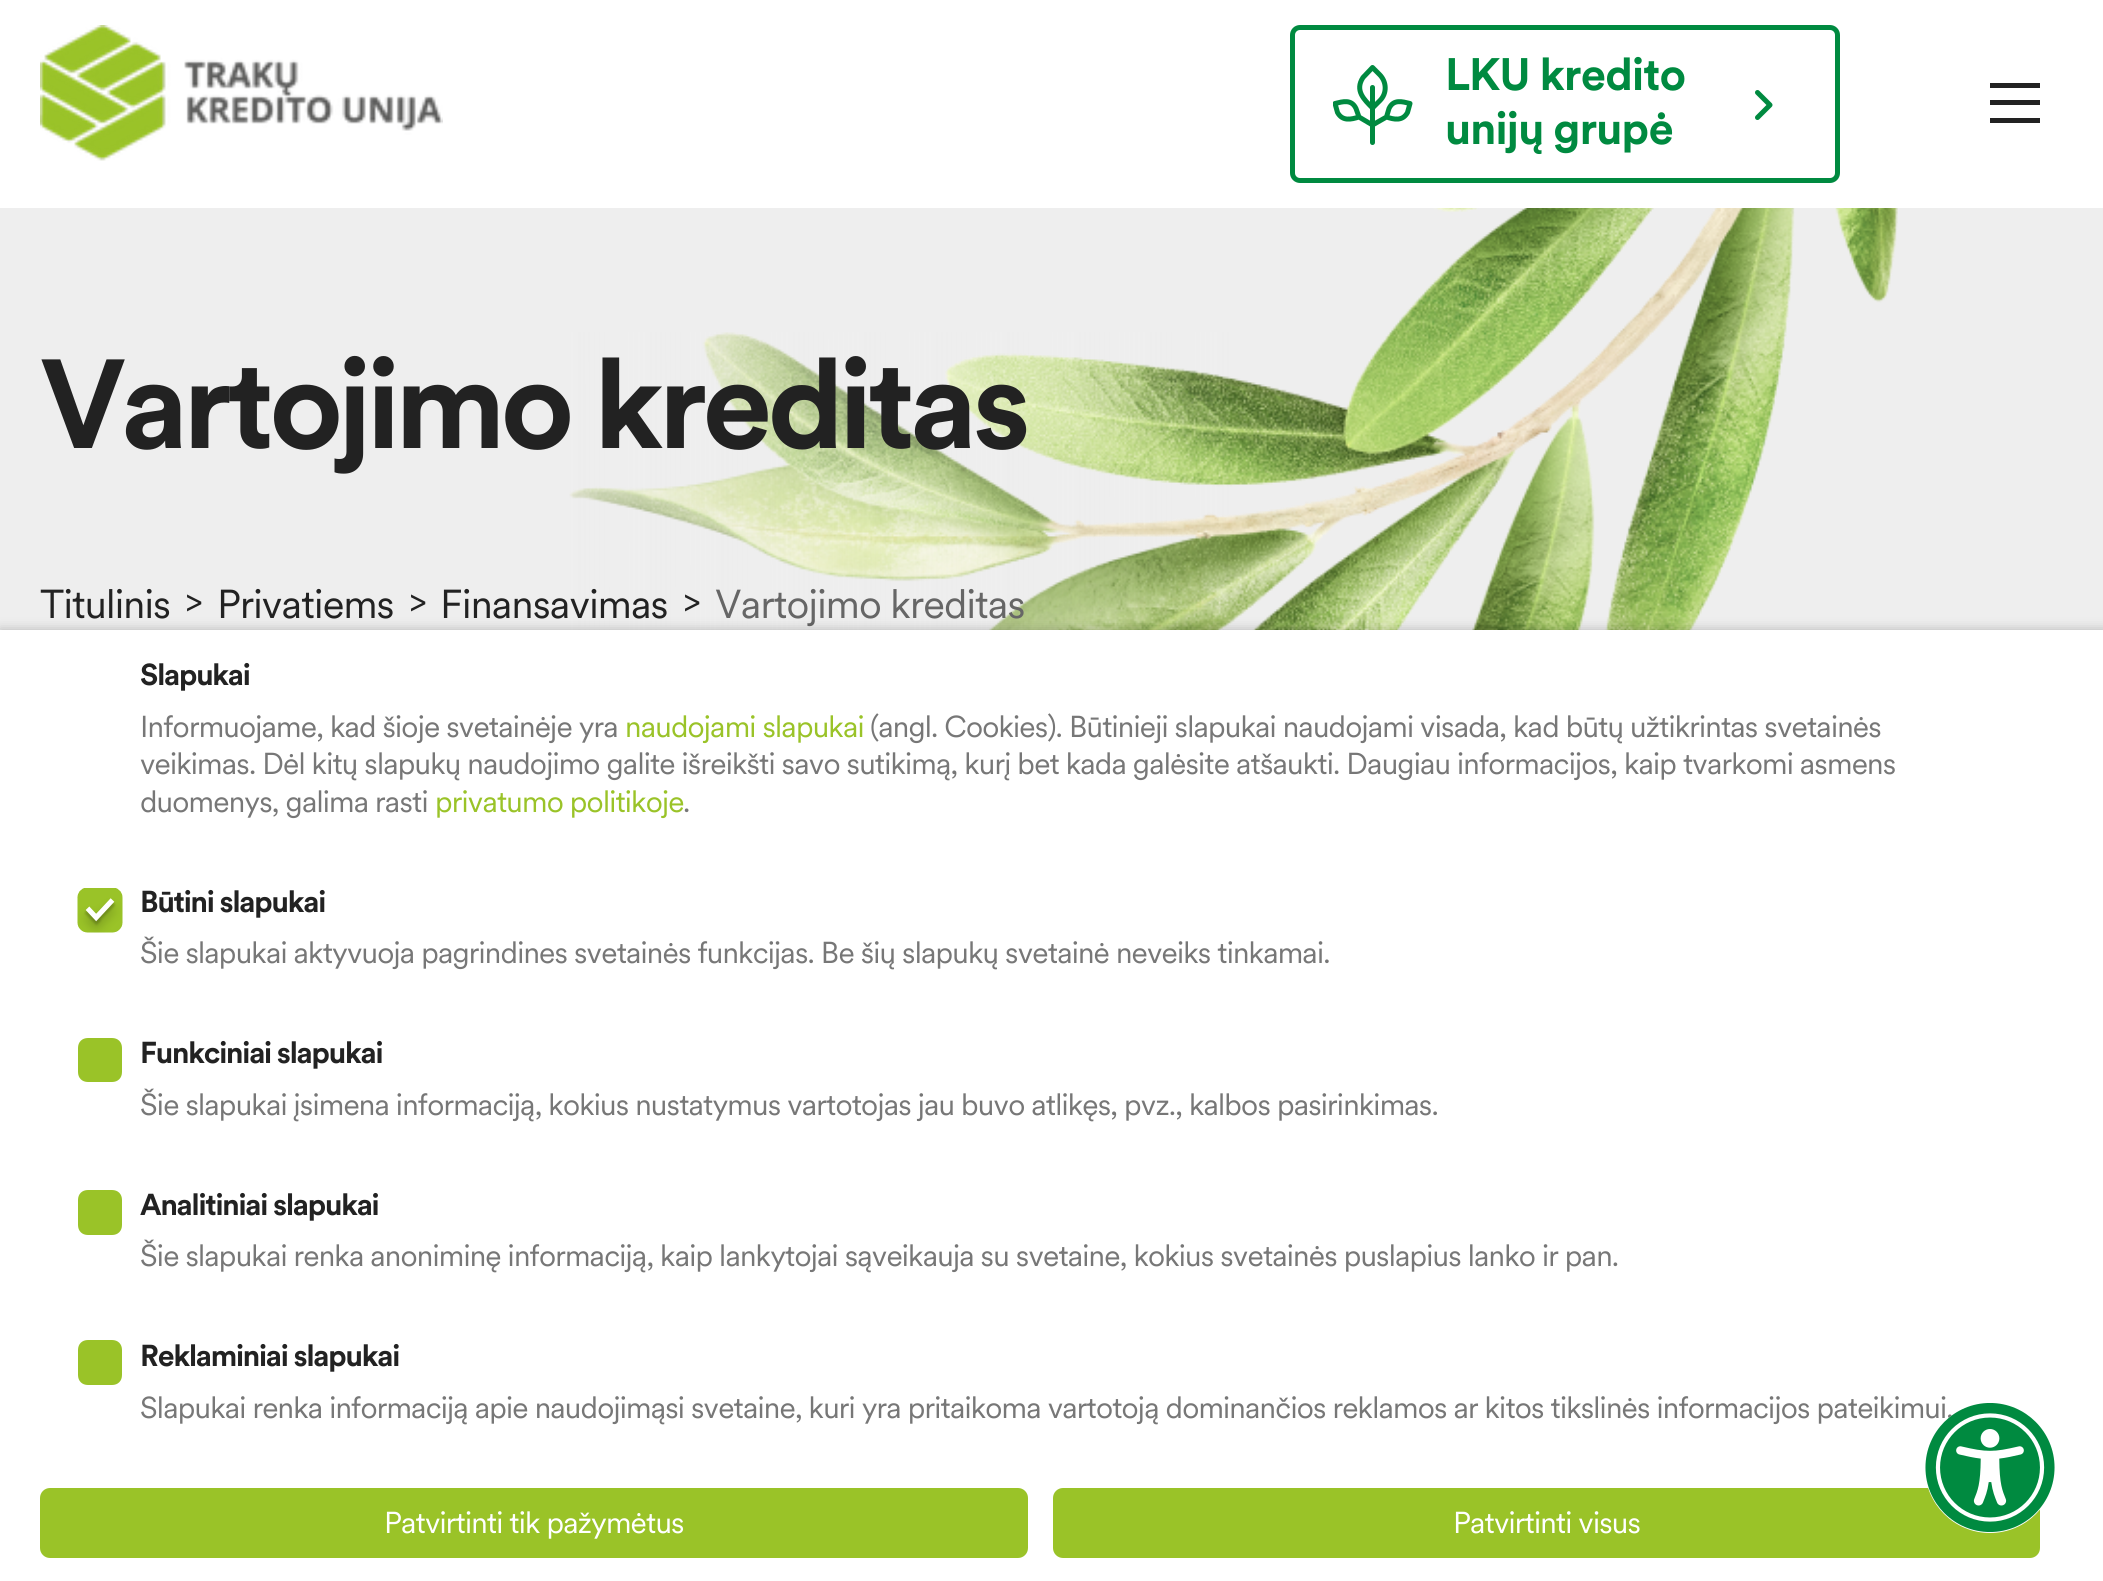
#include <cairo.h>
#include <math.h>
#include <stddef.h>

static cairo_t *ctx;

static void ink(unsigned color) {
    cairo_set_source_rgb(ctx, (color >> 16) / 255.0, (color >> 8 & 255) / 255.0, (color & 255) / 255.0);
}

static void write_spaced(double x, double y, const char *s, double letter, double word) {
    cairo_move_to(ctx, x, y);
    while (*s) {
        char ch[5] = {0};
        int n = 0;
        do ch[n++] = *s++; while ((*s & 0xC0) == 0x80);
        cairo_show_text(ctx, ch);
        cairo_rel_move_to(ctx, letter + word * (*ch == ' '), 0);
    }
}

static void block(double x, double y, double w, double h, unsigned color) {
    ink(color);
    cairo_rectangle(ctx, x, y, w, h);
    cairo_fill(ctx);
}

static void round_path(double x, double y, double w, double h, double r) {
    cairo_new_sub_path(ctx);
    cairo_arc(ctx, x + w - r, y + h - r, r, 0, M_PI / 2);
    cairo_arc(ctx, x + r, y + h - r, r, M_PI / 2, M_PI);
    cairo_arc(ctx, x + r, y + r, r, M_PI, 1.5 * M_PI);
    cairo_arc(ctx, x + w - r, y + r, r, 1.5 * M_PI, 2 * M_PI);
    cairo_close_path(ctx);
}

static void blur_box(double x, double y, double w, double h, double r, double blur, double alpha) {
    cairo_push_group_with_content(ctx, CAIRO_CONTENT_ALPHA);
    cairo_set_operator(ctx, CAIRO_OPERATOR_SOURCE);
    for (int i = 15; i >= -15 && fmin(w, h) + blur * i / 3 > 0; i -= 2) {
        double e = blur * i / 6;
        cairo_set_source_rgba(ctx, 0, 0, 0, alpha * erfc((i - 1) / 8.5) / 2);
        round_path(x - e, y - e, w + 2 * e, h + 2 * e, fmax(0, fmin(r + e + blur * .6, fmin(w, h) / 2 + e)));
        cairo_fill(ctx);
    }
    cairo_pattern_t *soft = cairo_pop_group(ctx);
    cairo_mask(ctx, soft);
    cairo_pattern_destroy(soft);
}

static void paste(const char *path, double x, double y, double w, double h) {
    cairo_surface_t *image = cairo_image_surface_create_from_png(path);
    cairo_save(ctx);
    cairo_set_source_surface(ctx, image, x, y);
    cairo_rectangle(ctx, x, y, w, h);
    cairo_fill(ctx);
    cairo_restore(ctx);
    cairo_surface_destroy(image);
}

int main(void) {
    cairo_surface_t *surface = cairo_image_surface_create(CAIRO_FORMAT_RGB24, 2103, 1581);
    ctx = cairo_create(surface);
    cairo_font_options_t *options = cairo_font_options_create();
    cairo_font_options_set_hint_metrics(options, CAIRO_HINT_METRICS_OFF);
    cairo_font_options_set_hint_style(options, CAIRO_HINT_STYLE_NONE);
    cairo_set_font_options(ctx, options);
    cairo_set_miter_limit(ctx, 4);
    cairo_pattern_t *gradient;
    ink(0xeeeeee);
    cairo_paint(ctx);
    block(0, 0, 2103, 208, 0xffffff);
    paste("pic1.png", 40, 25, 403, 136);
    round_path(1292.5, 27.5, 545, 153, 7.5);
    ink(0x008a40);
    cairo_set_line_width(ctx, 5);
    cairo_stroke(ctx);
    cairo_save(ctx);
    cairo_rectangle(ctx, 1333, 65, 80, 80);
    cairo_clip(ctx);
    cairo_new_path(ctx);
    cairo_move_to(ctx, 1372.5, 87.5);
    cairo_line_to(ctx, 1372.5, 142.5);
    cairo_move_to(ctx, 1359, 117);
    cairo_curve_to(ctx, 1351, 119.5, 1342.5, 121.5, 1337.5, 112.5);
    cairo_line_to(ctx, 1335, 103.5);
    cairo_curve_to(ctx, 1343, 101.5, 1351.5, 99, 1356, 108.5);
    cairo_close_path(ctx);
    cairo_move_to(ctx, 1359, 117);
    cairo_line_to(ctx, 1372.5, 125);
    cairo_line_to(ctx, 1386.5, 117);
    cairo_move_to(ctx, 1386.5, 117);
    cairo_curve_to(ctx, 1394, 119.5, 1402.5, 121.5, 1407.5, 112.5);
    cairo_line_to(ctx, 1410, 103.5);
    cairo_curve_to(ctx, 1402, 101.5, 1393.5, 99, 1389, 108.5);
    cairo_close_path(ctx);
    cairo_move_to(ctx, 1379.5, 74.5);
    cairo_line_to(ctx, 1372.5, 67.5);
    cairo_line_to(ctx, 1363, 77.5);
    cairo_curve_to(ctx, 1354.5, 90.5, 1364, 99.5, 1372.5, 108);
    cairo_line_to(ctx, 1380, 100.5);
    cairo_curve_to(ctx, 1387, 93.5, 1387, 82, 1379.5, 74.5);
    cairo_close_path(ctx);
    cairo_set_line_cap(ctx, CAIRO_LINE_CAP_ROUND);
    cairo_set_line_join(ctx, CAIRO_LINE_JOIN_ROUND);
    cairo_stroke(ctx);
    cairo_restore(ctx);
    cairo_select_font_face(ctx, "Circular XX", CAIRO_FONT_SLANT_NORMAL, CAIRO_FONT_WEIGHT_BOLD);
    cairo_set_font_size(ctx, 45);
    write_spaced(1445, 90, "LKU kredito", -0.8, 0);
    cairo_new_path(ctx);
    cairo_move_to(ctx, 1757.5, 92.5);
    cairo_line_to(ctx, 1770, 105);
    cairo_line_to(ctx, 1757.5, 117.5);
    cairo_set_line_cap(ctx, CAIRO_LINE_CAP_ROUND);
    cairo_set_line_join(ctx, CAIRO_LINE_JOIN_ROUND);
    cairo_stroke(ctx);
    write_spaced(1445, 144, "unijų grupė", -0.8, 0);
    block(1990, 83, 50, 5, 0x222222);
    block(1990, 100, 50, 5, 0x222222);
    block(1990, 118, 50, 5, 0x222222);
    paste("pic2.png", 569, 208, 1329, 422);
    gradient = cairo_pattern_create_linear(40, 458, 1255, 457);
    cairo_pattern_add_color_stop_rgba(gradient, 0, 0.933, 0.933, 0.933, 1);
    cairo_pattern_add_color_stop_rgba(gradient, 1, 0.933, 0.933, 0.933, 0);
    cairo_set_source(ctx, gradient);
    cairo_pattern_destroy(gradient);
    cairo_rectangle(ctx, 569, 332, 660, 298);
    cairo_fill(ctx);
    cairo_set_font_size(ctx, 125);
    ink(0x222222);
    write_spaced(40, 448, "Vartojimo kreditas", -5, 0);
    cairo_select_font_face(ctx, "Circular XX", CAIRO_FONT_SLANT_NORMAL, CAIRO_FONT_WEIGHT_NORMAL);
    cairo_set_font_size(ctx, 40);
    write_spaced(40, 618, "Titulinis", -0.8, 0);
    cairo_set_font_size(ctx, 35);
    write_spaced(185, 613, ">", -0.8, 0);
    cairo_set_font_size(ctx, 40);
    write_spaced(217, 618, "Privatiems", -0.8, 0);
    cairo_set_font_size(ctx, 35);
    write_spaced(409, 613, ">", -0.8, 0);
    cairo_set_font_size(ctx, 40);
    write_spaced(440, 618, "Finansavimas", -0.8, 0);
    cairo_set_font_size(ctx, 35);
    write_spaced(683, 613, ">", -0.8, 0);
    cairo_set_font_size(ctx, 40);
    ink(0x666666);
    write_spaced(715, 618, "Vartojimo kreditas", -0.8, 0);
    ink(0x000000);
    blur_box(0, 630, 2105, 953, 0, 6, 0.24);
    block(0, 630, 2103, 951, 0xffffff);
    cairo_select_font_face(ctx, "Circular XX", CAIRO_FONT_SLANT_NORMAL, CAIRO_FONT_WEIGHT_BOLD);
    cairo_set_font_size(ctx, 30);
    ink(0x222222);
    write_spaced(140, 685, "Slapukai", -1.2, 0);
    cairo_select_font_face(ctx, "Circular XX", CAIRO_FONT_SLANT_NORMAL, CAIRO_FONT_WEIGHT_NORMAL);
    ink(0x777777);
    write_spaced(140, 737, "Informuojame, kad šioje svetainėje yra", -0.8, 0);
    ink(0x9ac328);
    write_spaced(625, 737, "naudojami slapukai", -0.8, 0);
    ink(0x777777);
    write_spaced(870, 737, "(angl. Cookies). Būtinieji slapukai naudojami visada, kad būtų užtikrintas svetainės", -0.8, 0);
    write_spaced(140, 774, "veikimas. Dėl kitų slapukų naudojimo galite išreikšti savo sutikimą, kurį bet kada galėsite atšaukti. Daugiau informacijos, kaip tvarkomi asmens", -0.8, 0);
    write_spaced(140, 812, "duomenys, galima rasti", -0.8, 0);
    ink(0x9ac328);
    write_spaced(435, 812, "privatumo politikoje", -0.8, 0);
    ink(0x777777);
    write_spaced(683, 812, ".", -0.8, 0);
    paste("pic3.png", 77, 888, 46, 45);
    cairo_select_font_face(ctx, "Circular XX", CAIRO_FONT_SLANT_NORMAL, CAIRO_FONT_WEIGHT_BOLD);
    ink(0x222222);
    write_spaced(140, 912, "Būtini slapukai", -1.2, 0);
    cairo_select_font_face(ctx, "Circular XX", CAIRO_FONT_SLANT_NORMAL, CAIRO_FONT_WEIGHT_NORMAL);
    ink(0x777777);
    write_spaced(140, 963, "Šie slapukai aktyvuoja pagrindines svetainės funkcijas. Be šių slapukų svetainė neveiks tinkamai.", -0.8, 0);
    ink(0x9ac328);
    cairo_new_path(ctx);
    cairo_move_to(ctx, 78, 1048);
    cairo_curve_to(ctx, 78, 1042, 82, 1038, 88, 1038);
    cairo_line_to(ctx, 112, 1038);
    cairo_curve_to(ctx, 118, 1038, 122, 1042, 122, 1048);
    cairo_line_to(ctx, 122, 1072);
    cairo_curve_to(ctx, 122, 1078, 118, 1082, 112, 1082);
    cairo_line_to(ctx, 88, 1082);
    cairo_curve_to(ctx, 82, 1082, 78, 1078, 78, 1072);
    cairo_close_path(ctx);
    cairo_fill(ctx);
    cairo_select_font_face(ctx, "Circular XX", CAIRO_FONT_SLANT_NORMAL, CAIRO_FONT_WEIGHT_BOLD);
    ink(0x222222);
    write_spaced(140, 1063, "Funkciniai slapukai", -1.2, 0);
    cairo_select_font_face(ctx, "Circular XX", CAIRO_FONT_SLANT_NORMAL, CAIRO_FONT_WEIGHT_NORMAL);
    ink(0x777777);
    write_spaced(140, 1115, "Šie slapukai įsimena informaciją, kokius nustatymus vartotojas jau buvo atlikęs, pvz., kalbos pasirinkimas.", -0.8, 0);
    ink(0x9ac328);
    cairo_new_path(ctx);
    cairo_move_to(ctx, 78, 1200);
    cairo_curve_to(ctx, 78, 1194, 82, 1190, 88, 1190);
    cairo_line_to(ctx, 112, 1190);
    cairo_curve_to(ctx, 118, 1190, 122, 1194, 122, 1200);
    cairo_line_to(ctx, 122, 1225);
    cairo_curve_to(ctx, 122, 1231, 118, 1235, 112, 1235);
    cairo_line_to(ctx, 88, 1235);
    cairo_curve_to(ctx, 82, 1235, 78, 1231, 78, 1225);
    cairo_close_path(ctx);
    cairo_fill(ctx);
    cairo_select_font_face(ctx, "Circular XX", CAIRO_FONT_SLANT_NORMAL, CAIRO_FONT_WEIGHT_BOLD);
    ink(0x222222);
    write_spaced(140, 1215, "Analitiniai slapukai", -1.2, 0);
    cairo_select_font_face(ctx, "Circular XX", CAIRO_FONT_SLANT_NORMAL, CAIRO_FONT_WEIGHT_NORMAL);
    ink(0x777777);
    write_spaced(140, 1266, "Šie slapukai renka anoniminę informaciją, kaip lankytojai sąveikauja su svetaine, kokius svetainės puslapius lanko ir pan.", -0.8, 0);
    ink(0x9ac328);
    cairo_new_path(ctx);
    cairo_move_to(ctx, 78, 1350);
    cairo_curve_to(ctx, 78, 1344, 82, 1340, 88, 1340);
    cairo_line_to(ctx, 112, 1340);
    cairo_curve_to(ctx, 118, 1340, 122, 1344, 122, 1350);
    cairo_line_to(ctx, 122, 1375);
    cairo_curve_to(ctx, 122, 1381, 118, 1385, 112, 1385);
    cairo_line_to(ctx, 88, 1385);
    cairo_curve_to(ctx, 82, 1385, 78, 1381, 78, 1375);
    cairo_close_path(ctx);
    cairo_fill(ctx);
    cairo_select_font_face(ctx, "Circular XX", CAIRO_FONT_SLANT_NORMAL, CAIRO_FONT_WEIGHT_BOLD);
    ink(0x222222);
    write_spaced(140, 1366, "Reklaminiai slapukai", -1.2, 0);
    cairo_select_font_face(ctx, "Circular XX", CAIRO_FONT_SLANT_NORMAL, CAIRO_FONT_WEIGHT_NORMAL);
    ink(0x777777);
    write_spaced(140, 1418, "Slapukai renka informaciją apie naudojimąsi svetaine, kuri yra pritaikoma vartotoją dominančios reklamos ar kitos tikslinės informacijos pateikimui.", -0.8, 0);
    ink(0x9ac328);
    round_path(40, 1488, 988, 70, 10);
    cairo_fill(ctx);
    ink(0xffffff);
    write_spaced(384, 1533, "Patvirtinti tik pažymėtus", -0.8, 0);
    ink(0x9ac328);
    round_path(1053, 1488, 987, 70, 10);
    cairo_fill(ctx);
    ink(0xffffff);
    write_spaced(1453, 1533, "Patvirtinti visus", -0.8, 0);
    cairo_new_path(ctx);
    cairo_arc(ctx, 1990, 1468, 65, 0, 2 * M_PI);
    cairo_fill(ctx);
    paste("pic4.png", 1925, 1403, 130, 130);
    cairo_surface_write_to_png(surface, "screenshot.png");
    cairo_font_options_destroy(options);
    cairo_destroy(ctx);
    cairo_surface_destroy(surface);
    return 0;
}
